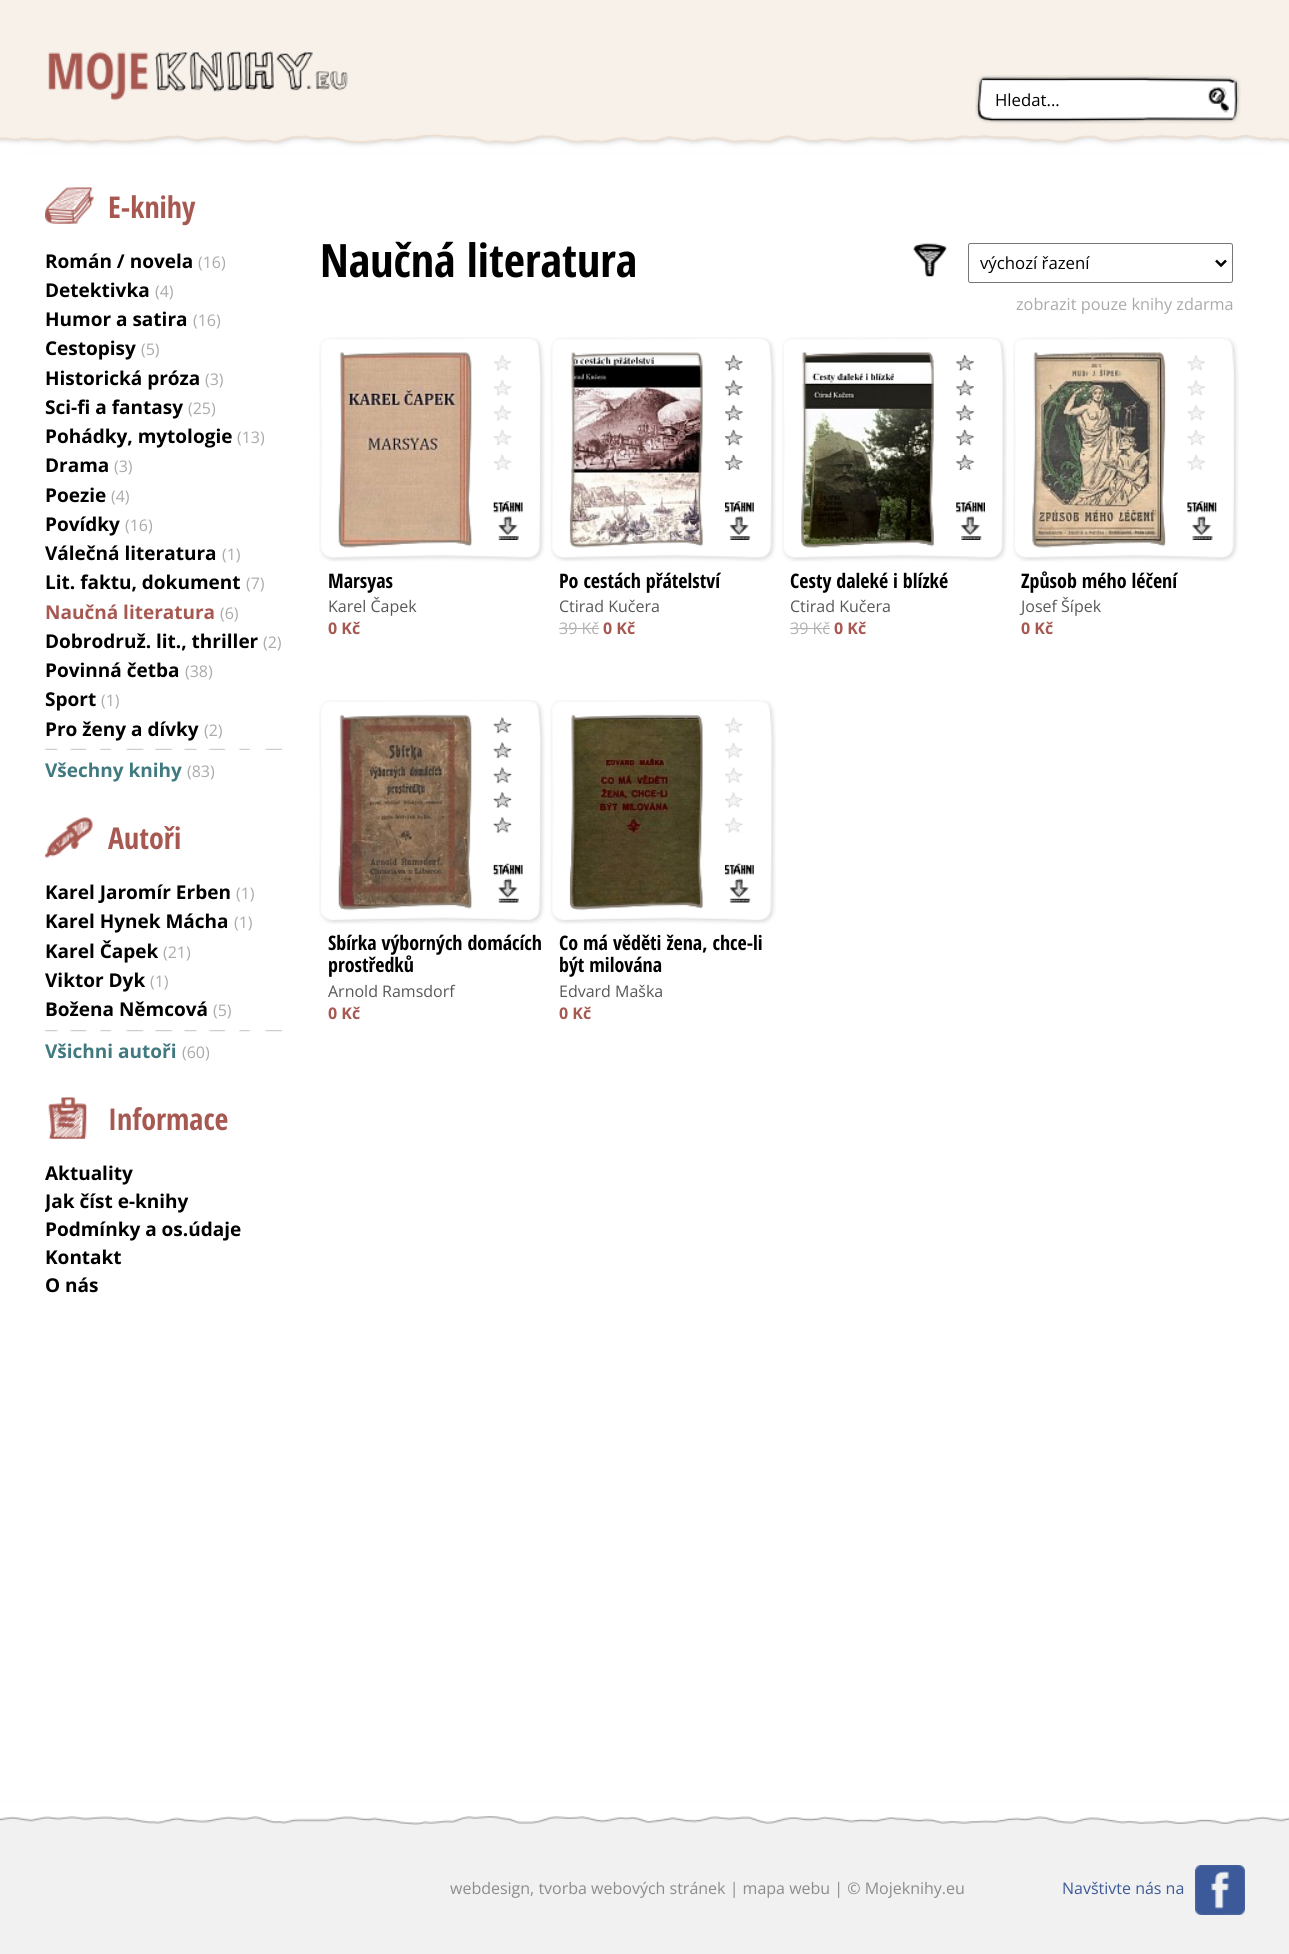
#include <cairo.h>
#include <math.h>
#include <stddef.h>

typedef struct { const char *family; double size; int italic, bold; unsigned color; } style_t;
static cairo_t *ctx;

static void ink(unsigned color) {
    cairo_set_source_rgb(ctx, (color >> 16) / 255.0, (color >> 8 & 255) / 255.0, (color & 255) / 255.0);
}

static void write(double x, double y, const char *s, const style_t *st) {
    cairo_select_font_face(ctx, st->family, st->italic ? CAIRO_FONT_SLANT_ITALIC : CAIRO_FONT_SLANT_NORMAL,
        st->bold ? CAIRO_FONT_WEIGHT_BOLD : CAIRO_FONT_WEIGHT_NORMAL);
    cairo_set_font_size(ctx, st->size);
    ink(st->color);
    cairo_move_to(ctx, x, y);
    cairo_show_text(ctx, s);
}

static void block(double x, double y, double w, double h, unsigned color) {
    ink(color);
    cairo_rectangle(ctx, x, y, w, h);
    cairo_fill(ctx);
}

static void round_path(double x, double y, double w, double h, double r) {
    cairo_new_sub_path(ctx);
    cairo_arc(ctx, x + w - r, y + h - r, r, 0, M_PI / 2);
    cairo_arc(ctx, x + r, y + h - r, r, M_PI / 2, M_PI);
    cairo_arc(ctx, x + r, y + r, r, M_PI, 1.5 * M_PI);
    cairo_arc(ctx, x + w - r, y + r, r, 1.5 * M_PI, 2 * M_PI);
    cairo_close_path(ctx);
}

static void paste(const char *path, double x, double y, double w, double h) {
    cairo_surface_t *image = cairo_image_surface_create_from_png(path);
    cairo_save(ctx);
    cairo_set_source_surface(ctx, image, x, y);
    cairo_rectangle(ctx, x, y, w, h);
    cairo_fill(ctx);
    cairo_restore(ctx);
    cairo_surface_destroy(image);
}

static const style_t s1 = {"Open Sans", 16.75, 0, 0, 0x000000};
static const style_t s2 = {"Open Sans Condensed", 30, 0, 1, 0xa65851};
static const style_t s3 = {"Open Sans", 19, 0, 1, 0x000000};
static const style_t s4 = {"Open Sans", 16, 0, 0, 0xaaaaaa};
static const style_t s5 = {"Open Sans", 19, 0, 1, 0xa65851};
static const style_t s6 = {"Open Sans", 19, 0, 1, 0x407980};
static const style_t s7 = {"Open Sans Condensed", 46, 0, 1, 0x000000};
static const style_t s8 = {"Open Sans", 16.25, 0, 0, 0xaaaaaa};
static const style_t s9 = {"Open Sans Condensed", 20, 0, 1, 0x000000};
static const style_t s10 = {"Open Sans", 16, 0, 0, 0x575757};
static const style_t s11 = {"Open Sans", 16, 0, 1, 0xa65851};
static const style_t s12 = {"Open Sans", 16, 0, 0, 0xb2b2b2};
static const style_t s13 = {"Open Sans", 16, 0, 0, 0x8c8c8c};
static const style_t s14 = {"Open Sans", 16, 0, 0, 0x3c5a99};

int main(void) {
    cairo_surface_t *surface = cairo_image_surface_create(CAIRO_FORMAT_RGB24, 1289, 1954);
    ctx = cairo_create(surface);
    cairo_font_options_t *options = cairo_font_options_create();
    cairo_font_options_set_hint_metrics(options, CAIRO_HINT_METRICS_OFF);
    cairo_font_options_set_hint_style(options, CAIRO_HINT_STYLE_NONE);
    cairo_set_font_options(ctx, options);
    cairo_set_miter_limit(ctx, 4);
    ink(0xffffff);
    cairo_paint(ctx);
    paste("pic1.png", 0, 0, 1289, 147);
    block(20, 133, 1250, 21, 0xf7f1ea);
    paste("pic2.png", 20, 51, 1250, 103);
    paste("pic3.png", 975, 75, 266, 49);
    write(995, 106, "Hledat...", &s1);
    paste("pic4.png", 1208, 87, 21, 26);
    paste("pic5.png", 45, 187, 49, 37);
    write(108, 218, "E-knihy", &s2);
    write(45, 268, "Román / novela", &s3);
    write(198, 268, "(16)", &s4);
    write(45, 297, "Detektivka", &s3);
    write(155, 297, "(4)", &s4);
    write(45, 326, "Humor a satira", &s3);
    write(193, 326, "(16)", &s4);
    write(45, 355, "Cestopisy", &s3);
    write(141, 355, "(5)", &s4);
    write(45, 385, "Historická próza", &s3);
    write(205, 385, "(3)", &s4);
    write(45, 414, "Sci-fi a fantasy", &s3);
    write(188, 414, "(25)", &s4);
    write(45, 443, "Pohádky, mytologie", &s3);
    write(237, 443, "(13)", &s4);
    write(45, 472, "Drama", &s3);
    write(114, 472, "(3)", &s4);
    write(45, 502, "Poezie", &s3);
    write(111, 502, "(4)", &s4);
    write(45, 531, "Povídky", &s3);
    write(125, 531, "(16)", &s4);
    write(45, 560, "Válečná literatura", &s3);
    write(222, 560, "(1)", &s4);
    write(45, 589, "Lit. faktu, dokument", &s3);
    write(246, 589, "(7)", &s4);
    write(45, 619, "Naučná literatura", &s5);
    write(220, 619, "(6)", &s4);
    write(45, 648, "Dobrodruž. lit., thriller", &s3);
    write(263, 648, "(2)", &s4);
    write(45, 677, "Povinná četba", &s3);
    write(185, 677, "(38)", &s4);
    write(45, 706, "Sport", &s3);
    write(101, 706, "(1)", &s4);
    write(45, 736, "Pro ženy a dívky", &s3);
    write(204, 736, "(2)", &s4);
    paste("pic6.png", 45, 748, 238, 2);
    write(45, 777, "Všechny knihy", &s6);
    write(187, 777, "(83)", &s4);
    paste("pic7.png", 45, 817, 48, 41);
    write(108, 849, "Autoři", &s2);
    write(45, 899, "Karel Jaromír Erben", &s3);
    write(236, 899, "(1)", &s4);
    write(45, 928, "Karel Hynek Mácha", &s3);
    write(234, 928, "(1)", &s4);
    write(45, 958, "Karel Čapek", &s3);
    write(163, 958, "(21)", &s4);
    write(45, 987, "Viktor Dyk", &s3);
    write(150, 987, "(1)", &s4);
    write(45, 1016, "Božena Němcová", &s3);
    write(213, 1016, "(5)", &s4);
    paste("pic8.png", 45, 1030, 238, 2);
    write(45, 1058, "Všichni autoři", &s6);
    write(182, 1058, "(60)", &s4);
    paste("pic9.png", 48, 1097, 39, 42);
    write(108, 1130, "Informace", &s2);
    write(45, 1180, "Aktuality", &s3);
    cairo_save(ctx);
    cairo_rectangle(ctx, 45, 154, 238, 1182);
    cairo_clip(ctx);
    write(45, 1208, "Jak číst e-knihy", &s3);
    cairo_restore(ctx);
    write(45, 1236, "Podmínky a os.údaje", &s3);
    write(45, 1264, "Kontakt", &s3);
    write(45, 1292, "O nás", &s3);
    write(320, 277, "Naučná literatura", &s7);
    paste("pic10.png", 913, 243, 34, 34);
    round_path(968.5, 243.5, 264, 39, 2);
    ink(0x767676);
    cairo_set_line_width(ctx, 1);
    cairo_stroke(ctx);
    cairo_new_path(ctx);
    cairo_move_to(ctx, 1216, 260.5);
    cairo_line_to(ctx, 1221, 265.5);
    cairo_line_to(ctx, 1226, 260.5);
    ink(0x000000);
    cairo_set_line_width(ctx, 2.5);
    cairo_stroke(ctx);
    write(980, 269, "výchozí řazení", &s1);
    write(1016, 310, "zobrazit pouze knihy zdarma", &s8);
    paste("pic12.png", 338, 352, 134, 196);
    paste("pic11.png", 319, 337, 226, 225);
    paste("pic13.png", 493, 355, 19, 115);
    paste("pic14.png", 493, 501, 30, 39);
    write(328, 588, "Marsyas", &s9);
    write(328, 612, "Karel Čapek", &s10);
    write(328, 634, "0 Kč", &s11);
    paste("pic16.png", 569, 352, 134, 196);
    paste("pic15.png", 550, 337, 226, 225);
    paste("pic17.png", 725, 355, 18, 115);
    paste("pic18.png", 725, 501, 29, 39);
    write(559, 588, "Po cestách přátelství", &s9);
    write(559, 612, "Ctirad Kučera", &s10);
    write(559, 634, "39 Kč", &s12);
    block(559, 628, 40, 1, 0xb2b2b2);
    write(603, 634, "0 Kč", &s11);
    paste("pic20.png", 801, 352, 133, 196);
    paste("pic19.png", 782, 337, 225, 225);
    paste("pic21.png", 956, 355, 18, 115);
    paste("pic22.png", 956, 501, 29, 39);
    write(790, 588, "Cesty daleké i blízké", &s9);
    write(790, 612, "Ctirad Kučera", &s10);
    write(790, 634, "39 Kč", &s12);
    block(790, 628, 40, 1, 0xb2b2b2);
    write(834, 634, "0 Kč", &s11);
    paste("pic24.png", 1032, 352, 133, 196);
    paste("pic23.png", 1013, 337, 226, 225);
    paste("pic25.png", 1187, 355, 18, 115);
    paste("pic26.png", 1187, 501, 30, 39);
    write(1021, 588, "Způsob mého léčení", &s9);
    write(1021, 612, "Josef Šípek", &s10);
    write(1021, 634, "0 Kč", &s11);
    paste("pic28.png", 338, 714, 134, 196);
    paste("pic27.png", 319, 700, 226, 224);
    paste("pic29.png", 493, 717, 19, 116);
    paste("pic30.png", 493, 863, 30, 40);
    write(328, 950, "Sbírka výborných domácích", &s9);
    write(328, 972, "prostředků", &s9);
    write(328, 997, "Arnold Ramsdorf", &s10);
    write(328, 1019, "0 Kč", &s11);
    paste("pic32.png", 569, 714, 134, 196);
    paste("pic31.png", 550, 700, 226, 224);
    paste("pic33.png", 725, 717, 18, 116);
    paste("pic34.png", 725, 863, 29, 40);
    write(559, 950, "Co má věděti žena, chce-li", &s9);
    write(559, 972, "být milována", &s9);
    write(559, 997, "Edvard Maška", &s10);
    write(559, 1019, "0 Kč", &s11);
    block(0, 1801, 1289, 153, 0xf1f1f1);
    paste("pic35.png", 0, 1801, 1289, 24);
    write(450, 1894, "webdesign, tvorba webových stránek | mapa webu | © Mojeknihy.eu", &s13);
    write(1062, 1894, "Navštivte nás na", &s14);
    paste("pic36.png", 1195, 1865, 50, 50);
    cairo_surface_write_to_png(surface, "screenshot.png");
    cairo_font_options_destroy(options);
    cairo_destroy(ctx);
    cairo_surface_destroy(surface);
    return 0;
}
